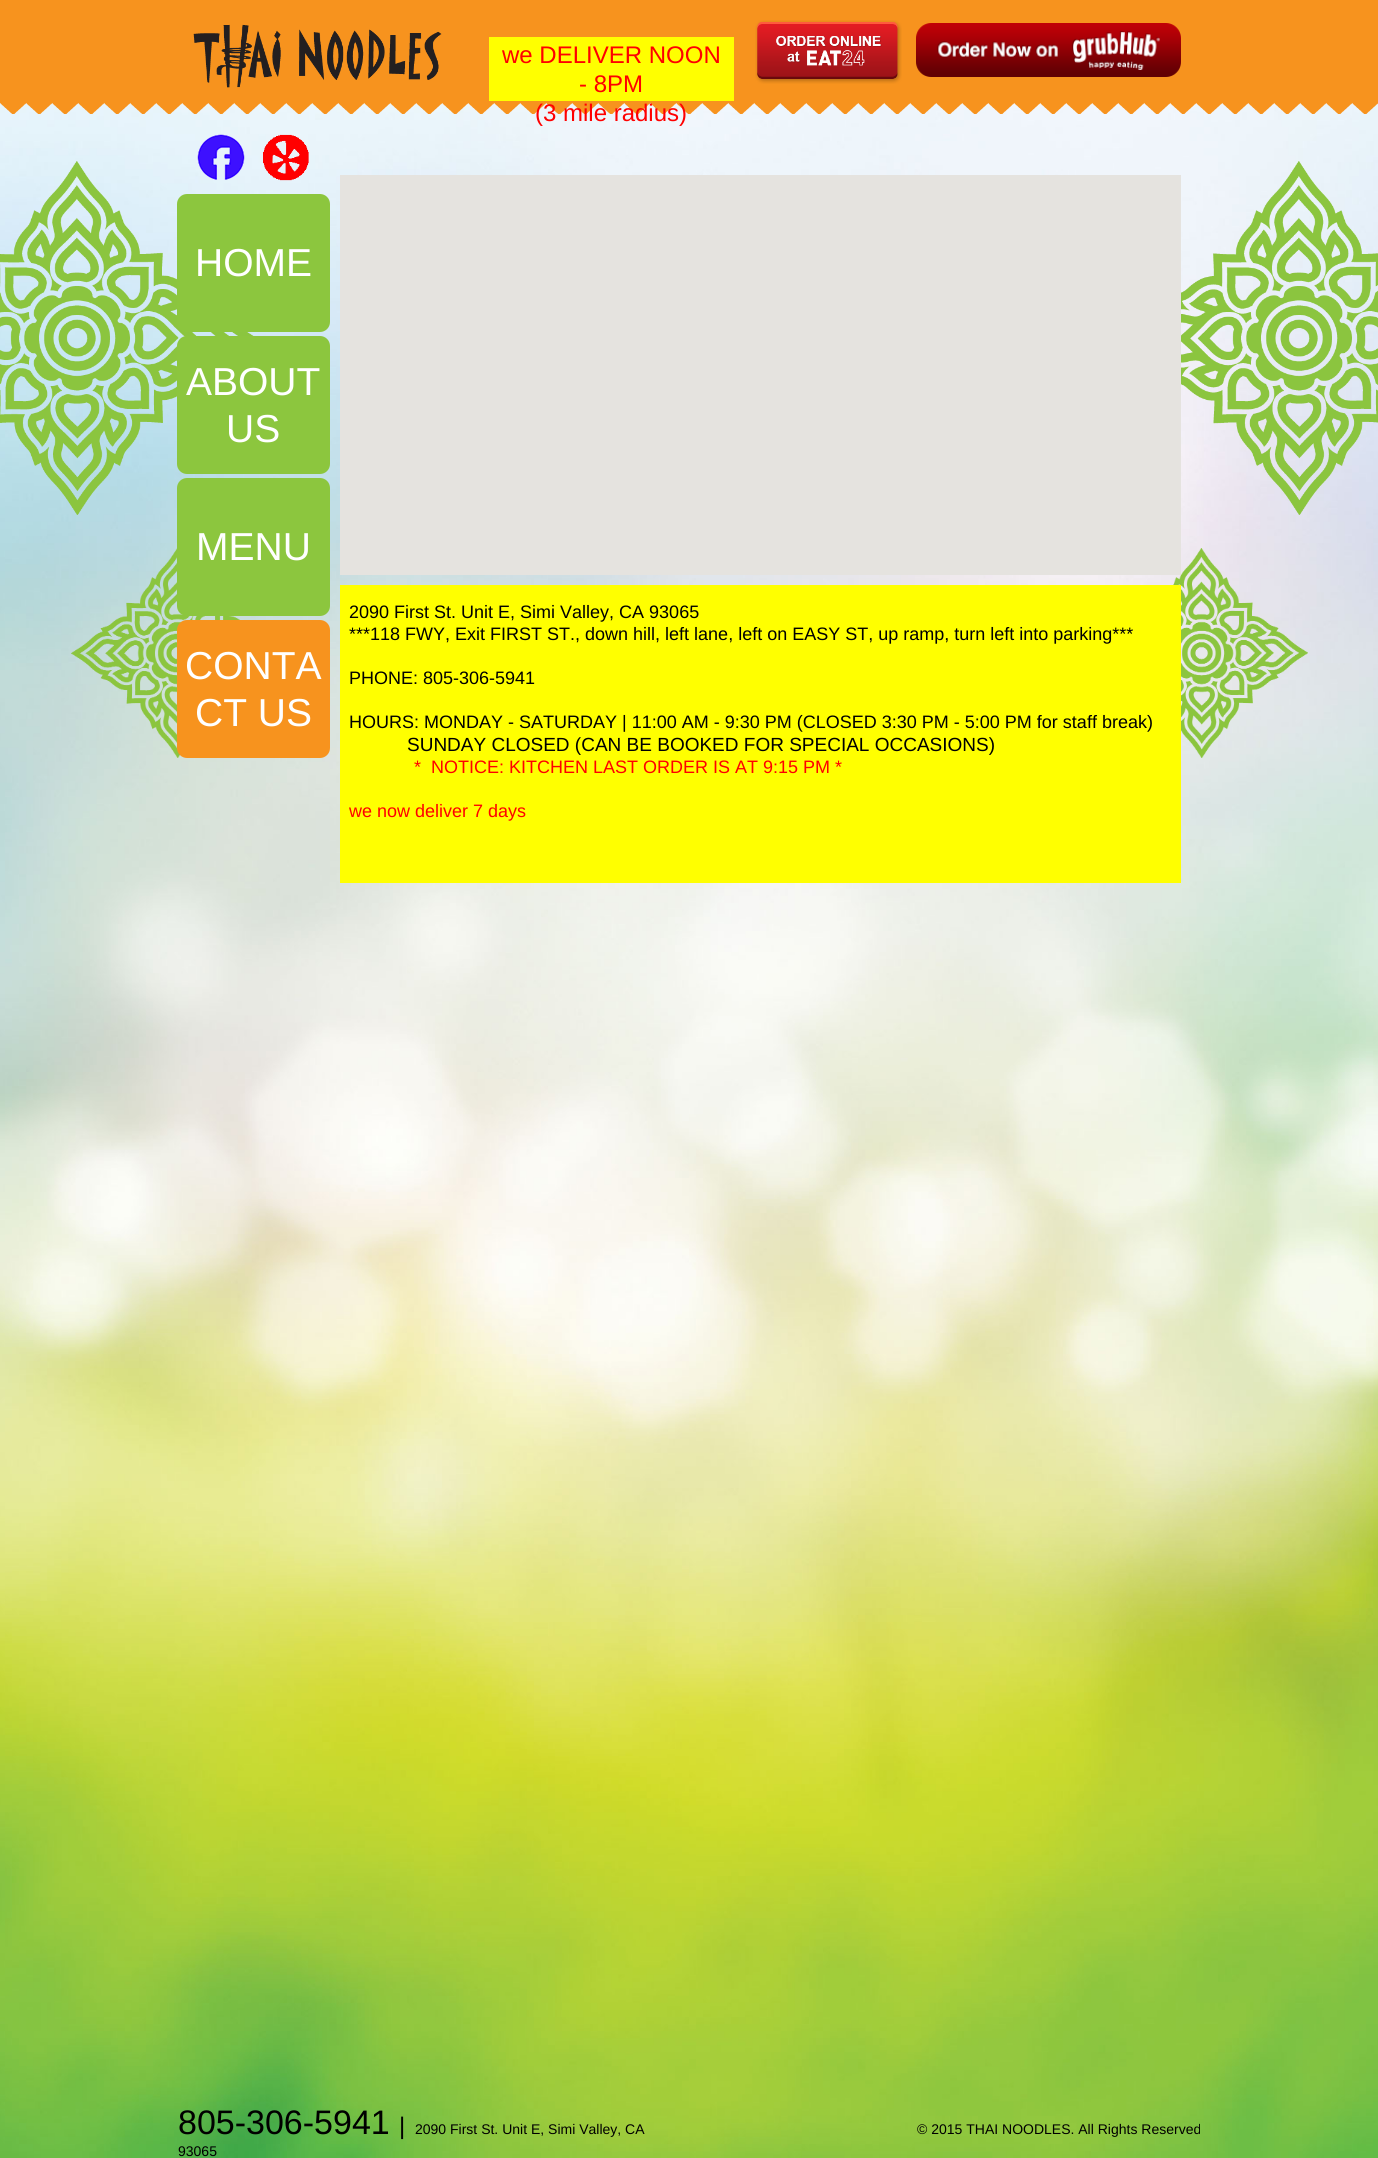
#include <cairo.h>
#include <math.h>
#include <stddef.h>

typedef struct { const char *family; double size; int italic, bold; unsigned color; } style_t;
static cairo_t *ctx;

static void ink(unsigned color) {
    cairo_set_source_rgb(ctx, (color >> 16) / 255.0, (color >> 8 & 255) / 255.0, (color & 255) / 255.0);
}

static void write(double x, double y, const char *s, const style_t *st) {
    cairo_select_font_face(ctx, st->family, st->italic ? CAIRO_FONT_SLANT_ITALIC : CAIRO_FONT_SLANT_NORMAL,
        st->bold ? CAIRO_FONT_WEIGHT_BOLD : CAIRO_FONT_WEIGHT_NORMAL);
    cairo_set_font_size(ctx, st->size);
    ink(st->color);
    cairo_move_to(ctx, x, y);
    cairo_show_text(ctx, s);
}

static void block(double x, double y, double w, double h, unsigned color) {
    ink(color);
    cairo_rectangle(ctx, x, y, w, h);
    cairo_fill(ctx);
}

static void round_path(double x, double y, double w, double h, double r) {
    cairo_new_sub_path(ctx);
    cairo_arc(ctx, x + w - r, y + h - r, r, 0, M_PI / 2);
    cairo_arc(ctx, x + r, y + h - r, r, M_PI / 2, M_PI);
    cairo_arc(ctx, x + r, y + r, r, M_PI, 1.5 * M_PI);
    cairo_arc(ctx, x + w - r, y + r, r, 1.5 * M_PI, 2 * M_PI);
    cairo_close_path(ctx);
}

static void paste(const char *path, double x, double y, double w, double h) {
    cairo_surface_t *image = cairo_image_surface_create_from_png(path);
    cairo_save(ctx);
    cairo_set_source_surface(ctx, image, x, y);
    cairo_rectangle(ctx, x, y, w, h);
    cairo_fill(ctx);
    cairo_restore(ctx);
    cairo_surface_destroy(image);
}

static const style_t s1 = {"Liberation Sans", 24, 0, 0, 0xff0000};
static const style_t s2 = {"Liberation Sans", 39, 0, 0, 0xffffff};
static const style_t s3 = {"Liberation Sans", 18, 0, 0, 0x000000};
static const style_t s4 = {"Liberation Sans", 19, 0, 0, 0x000000};
static const style_t s5 = {"Liberation Sans", 18, 0, 0, 0xff0000};
static const style_t s6 = {"Liberation Sans", 34, 0, 0, 0x000000};
static const style_t s7 = {"Liberation Sans", 24, 0, 0, 0x000000};
static const style_t s8 = {"Liberation Sans", 14, 0, 0, 0x000000};

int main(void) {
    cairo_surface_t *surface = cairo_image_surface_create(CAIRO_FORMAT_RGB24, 1378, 2158);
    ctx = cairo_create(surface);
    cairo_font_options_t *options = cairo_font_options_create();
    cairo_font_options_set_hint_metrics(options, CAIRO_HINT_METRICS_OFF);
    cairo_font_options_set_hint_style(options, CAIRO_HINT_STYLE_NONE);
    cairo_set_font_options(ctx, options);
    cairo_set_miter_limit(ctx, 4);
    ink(0xffffff);
    cairo_paint(ctx);
    paste("pic1.png", 0, 103, 1378, 2055);
    paste("pic2.png", 0, 0, 1378, 114);
    paste("pic3.png", 193, 24, 249, 64);
    block(489, 37, 245, 64, 0xffff00);
    write(502, 63, "we DELIVER NOON", &s1);
    write(579, 92, "- 8PM", &s1);
    write(535, 121, "(3 mile radius)", &s1);
    paste("pic4.png", 755, 20, 147, 64);
    paste("pic5.png", 916, 23, 265, 54);
    paste("pic8.png", 0, 161, 254, 354);
    paste("pic6.png", 197, 134, 48, 46);
    paste("pic7.png", 263, 134, 46, 47);
    paste("pic9.png", 71, 548, 169, 210);
    ink(0x8cc63e);
    round_path(177, 194, 153, 138, 10);
    cairo_fill(ctx);
    write(195, 276, "HOME", &s2);
    ink(0x8cc63e);
    round_path(177, 336, 153, 138, 10);
    cairo_fill(ctx);
    write(186, 395, "ABOUT", &s2);
    write(226, 442, "US", &s2);
    ink(0x8cc63e);
    round_path(177, 478, 153, 138, 10);
    cairo_fill(ctx);
    write(196, 560, "MENU", &s2);
    ink(0xf7931e);
    round_path(177, 620, 153, 138, 10);
    cairo_fill(ctx);
    write(185, 679, "CONTA", &s2);
    write(195, 726, "CT US", &s2);
    paste("pic11.png", 1173, 548, 135, 210);
    block(340, 175, 841, 400, 0xe5e3df);
    paste("pic10.png", 1181, 161, 197, 354);
    block(340, 585, 841, 298, 0xffff00);
    write(349, 618, "2090 First St. Unit E, Simi Valley, CA 93065", &s3);
    write(349, 640, "***118 FWY, Exit FIRST ST., down hill, left lane, left on EASY ST, up ramp, turn left into parking***", &s3);
    write(349, 684, "PHONE: 805-306-5941", &s3);
    write(349, 728, "HOURS: MONDAY - SATURDAY | 11:00 AM - 9:30 PM (CLOSED 3:30 PM - 5:00 PM for staff break)", &s3);
    write(407, 751, "SUNDAY CLOSED (CAN BE BOOKED FOR SPECIAL OCCASIONS)", &s4);
    write(414, 773, "*  NOTICE: KITCHEN LAST ORDER IS AT 9:15 PM *", &s5);
    write(349, 817, "we now deliver 7 days", &s5);
    write(178, 2134, "805-306-5941", &s6);
    write(399, 2134, "|", &s7);
    write(415, 2134, "2090 First St. Unit E, Simi Valley, CA", &s8);
    write(178, 2156, "93065", &s8);
    write(917, 2134, "© 2015 THAI NOODLES. All Rights Reserved", &s8);
    cairo_surface_write_to_png(surface, "screenshot.png");
    cairo_font_options_destroy(options);
    cairo_destroy(ctx);
    cairo_surface_destroy(surface);
    return 0;
}
